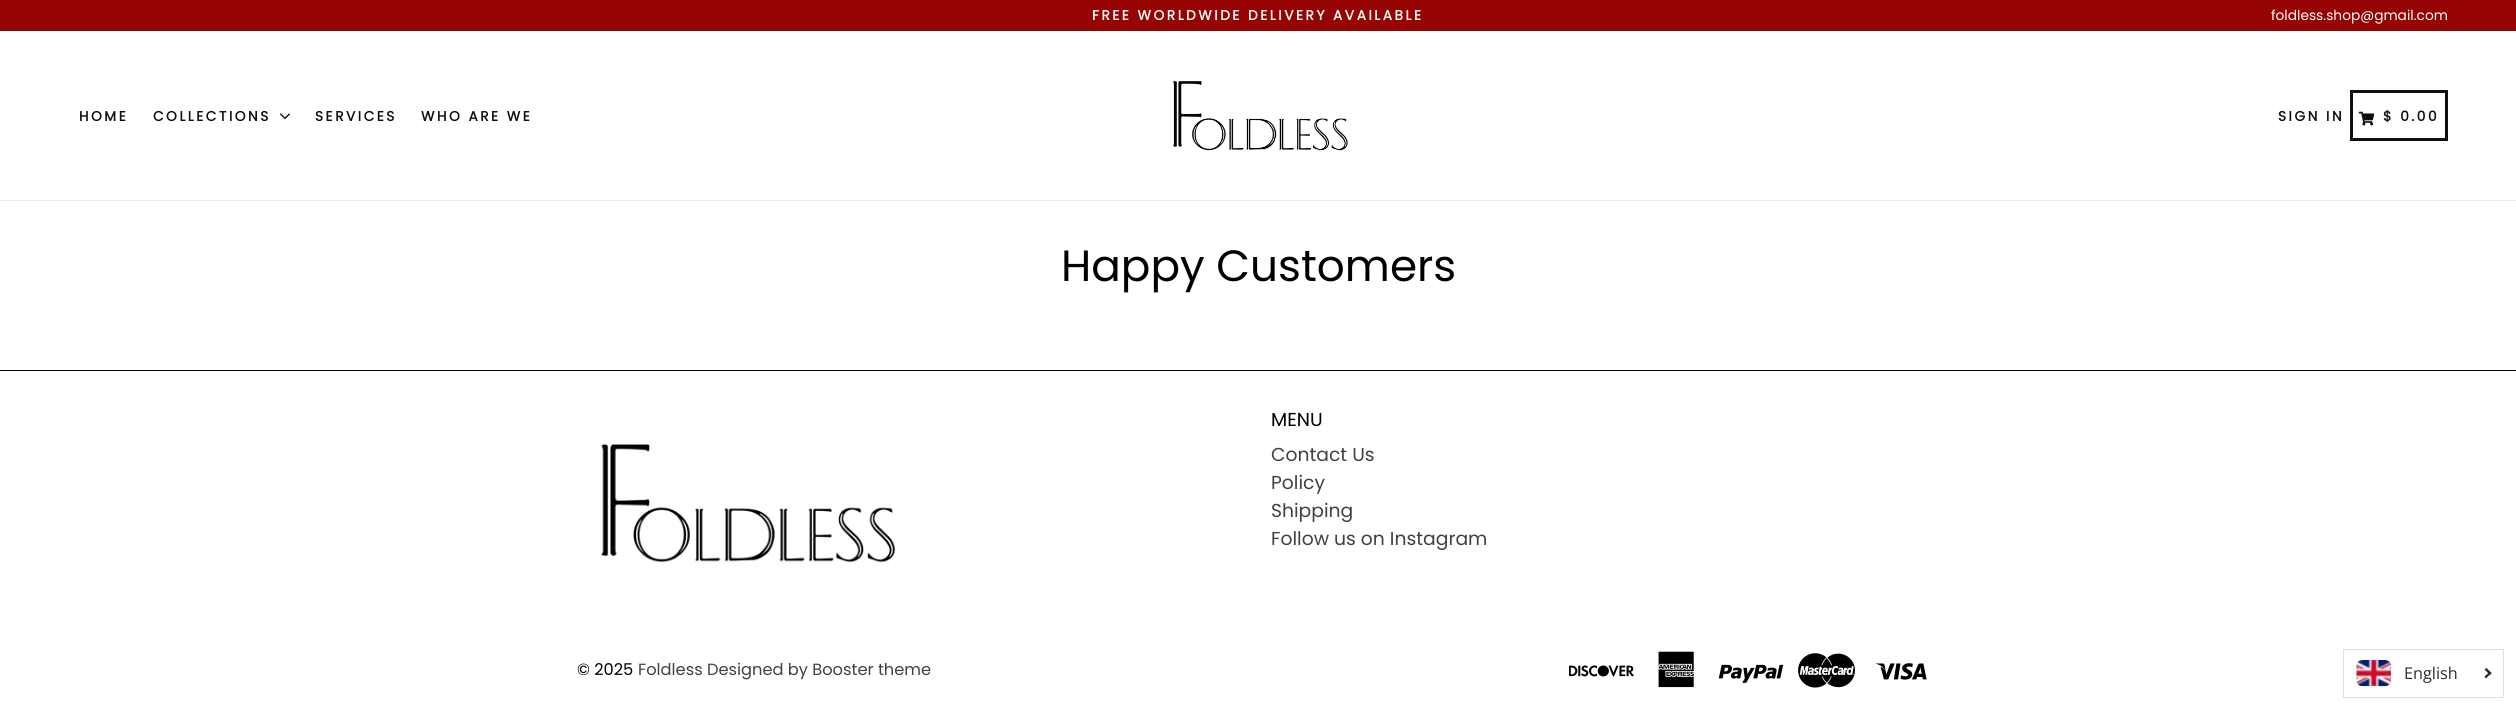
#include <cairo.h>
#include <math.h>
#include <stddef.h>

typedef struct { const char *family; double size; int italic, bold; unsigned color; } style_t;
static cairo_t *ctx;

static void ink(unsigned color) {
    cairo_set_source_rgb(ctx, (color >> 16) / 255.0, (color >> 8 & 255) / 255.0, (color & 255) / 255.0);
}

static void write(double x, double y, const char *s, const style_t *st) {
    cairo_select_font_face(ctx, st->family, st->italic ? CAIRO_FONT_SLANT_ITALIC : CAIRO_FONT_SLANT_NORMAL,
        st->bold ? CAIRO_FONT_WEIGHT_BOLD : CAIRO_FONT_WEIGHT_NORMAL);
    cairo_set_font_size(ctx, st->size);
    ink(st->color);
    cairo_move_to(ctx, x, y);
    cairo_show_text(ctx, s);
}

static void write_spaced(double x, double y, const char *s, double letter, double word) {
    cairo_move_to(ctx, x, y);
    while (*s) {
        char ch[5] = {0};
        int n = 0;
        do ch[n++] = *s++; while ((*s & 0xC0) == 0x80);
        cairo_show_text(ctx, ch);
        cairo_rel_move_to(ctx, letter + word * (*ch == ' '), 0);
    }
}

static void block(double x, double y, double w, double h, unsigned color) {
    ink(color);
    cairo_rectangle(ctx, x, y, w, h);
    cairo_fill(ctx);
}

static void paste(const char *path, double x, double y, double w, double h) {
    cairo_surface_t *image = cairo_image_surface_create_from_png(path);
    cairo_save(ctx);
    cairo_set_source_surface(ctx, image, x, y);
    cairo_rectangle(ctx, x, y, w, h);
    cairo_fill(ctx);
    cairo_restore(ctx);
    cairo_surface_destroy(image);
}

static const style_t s1 = {"Poppins", 13.75, 0, 0, 0xffffff};
static const style_t s2 = {"Poppins", 43.75, 0, 0, 0x000000};
static const style_t s3 = {"Poppins", 18.75, 0, 0, 0x000000};
static const style_t s4 = {"Poppins", 18.75, 0, 0, 0x3d4246};
static const style_t s5 = {"Poppins", 16.25, 0, 0, 0x000000};
static const style_t s6 = {"Poppins", 16.25, 0, 0, 0x3d4246};
static const style_t s7 = {"Open Sans", 16.25, 0, 0, 0x272e31};

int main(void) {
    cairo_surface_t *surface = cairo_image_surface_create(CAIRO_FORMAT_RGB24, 2516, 709);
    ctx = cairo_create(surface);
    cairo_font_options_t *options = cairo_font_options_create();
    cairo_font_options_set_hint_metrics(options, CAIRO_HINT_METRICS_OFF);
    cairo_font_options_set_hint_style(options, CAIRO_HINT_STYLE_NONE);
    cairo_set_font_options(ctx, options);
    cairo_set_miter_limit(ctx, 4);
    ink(0xffffff);
    cairo_paint(ctx);
    block(0, 0, 2516, 31, 0x960303);
    cairo_select_font_face(ctx, "Poppins", CAIRO_FONT_SLANT_NORMAL, CAIRO_FONT_WEIGHT_BOLD);
    cairo_set_font_size(ctx, 13.75);
    ink(0xffffff);
    write_spaced(1092, 20, "FREE WORLDWIDE DELIVERY AVAILABLE", 2.5, 0);
    write(2271, 20, "foldless.shop@gmail.com", &s1);
    block(0, 200, 2516, 1, 0xebebeb);
    cairo_select_font_face(ctx, "Poppins", CAIRO_FONT_SLANT_NORMAL, CAIRO_FONT_WEIGHT_BOLD);
    ink(0x0f0f0f);
    write_spaced(79, 121, "HOME", 2.5, 0);
    write_spaced(153, 121, "COLLECTIONS", 2.5, 0);
    paste("pic1.png", 280, 113, 10, 6);
    write_spaced(315, 121, "SERVICES", 2.5, 0);
    write_spaced(421, 121, "WHO ARE WE", 2.5, 0);
    paste("pic2.png", 1173, 81, 175, 70);
    write_spaced(2278, 121, "SIGN IN", 2.5, 0);
    cairo_rectangle(ctx, 2351.5, 91.5, 95, 48);
    cairo_set_line_width(ctx, 3);
    cairo_stroke(ctx);
    paste("pic3.png", 2358, 111, 17, 15);
    write_spaced(2383, 121, "$ 0.00", 2.5, 0);
    write(1061, 281, "Happy Customers", &s2);
    block(0, 370, 2516, 1, 0x000000);
    paste("pic4.png", 601, 444, 295, 119);
    write(1271, 426, "MENU", &s3);
    write(1271, 461, "Contact Us", &s4);
    write(1271, 489, "Policy", &s4);
    write(1271, 517, "Shipping", &s4);
    write(1271, 545, "Follow us on Instagram", &s4);
    write(577, 675, "© 2025", &s5);
    write(638, 675, "Foldless Designed by Booster theme", &s6);
    paste("pic5.png", 1569, 665, 65, 12);
    paste("pic6.png", 1658, 651, 36, 37);
    paste("pic7.png", 1719, 664, 65, 19);
    paste("pic8.png", 1798, 653, 57, 35);
    paste("pic9.png", 1876, 663, 51, 17);
    cairo_rectangle(ctx, 2343.5, 649.5, 160, 48);
    ink(0xe0e0e0);
    cairo_set_line_width(ctx, 1);
    cairo_stroke(ctx);
    paste("pic10.png", 2356, 660, 36, 27);
    write(2404, 679, "English", &s7);
    cairo_new_path(ctx);
    cairo_move_to(ctx, 2486.5, 668);
    cairo_line_to(ctx, 2491.5, 673);
    cairo_line_to(ctx, 2490, 675);
    cairo_line_to(ctx, 2484.5, 669.5);
    cairo_close_path(ctx);
    cairo_fill(ctx);
    cairo_new_path(ctx);
    cairo_move_to(ctx, 2490, 671.5);
    cairo_line_to(ctx, 2491.5, 673);
    cairo_line_to(ctx, 2486, 678.5);
    cairo_line_to(ctx, 2484.5, 676.5);
    cairo_close_path(ctx);
    cairo_fill(ctx);
    cairo_surface_write_to_png(surface, "screenshot.png");
    cairo_font_options_destroy(options);
    cairo_destroy(ctx);
    cairo_surface_destroy(surface);
    return 0;
}
